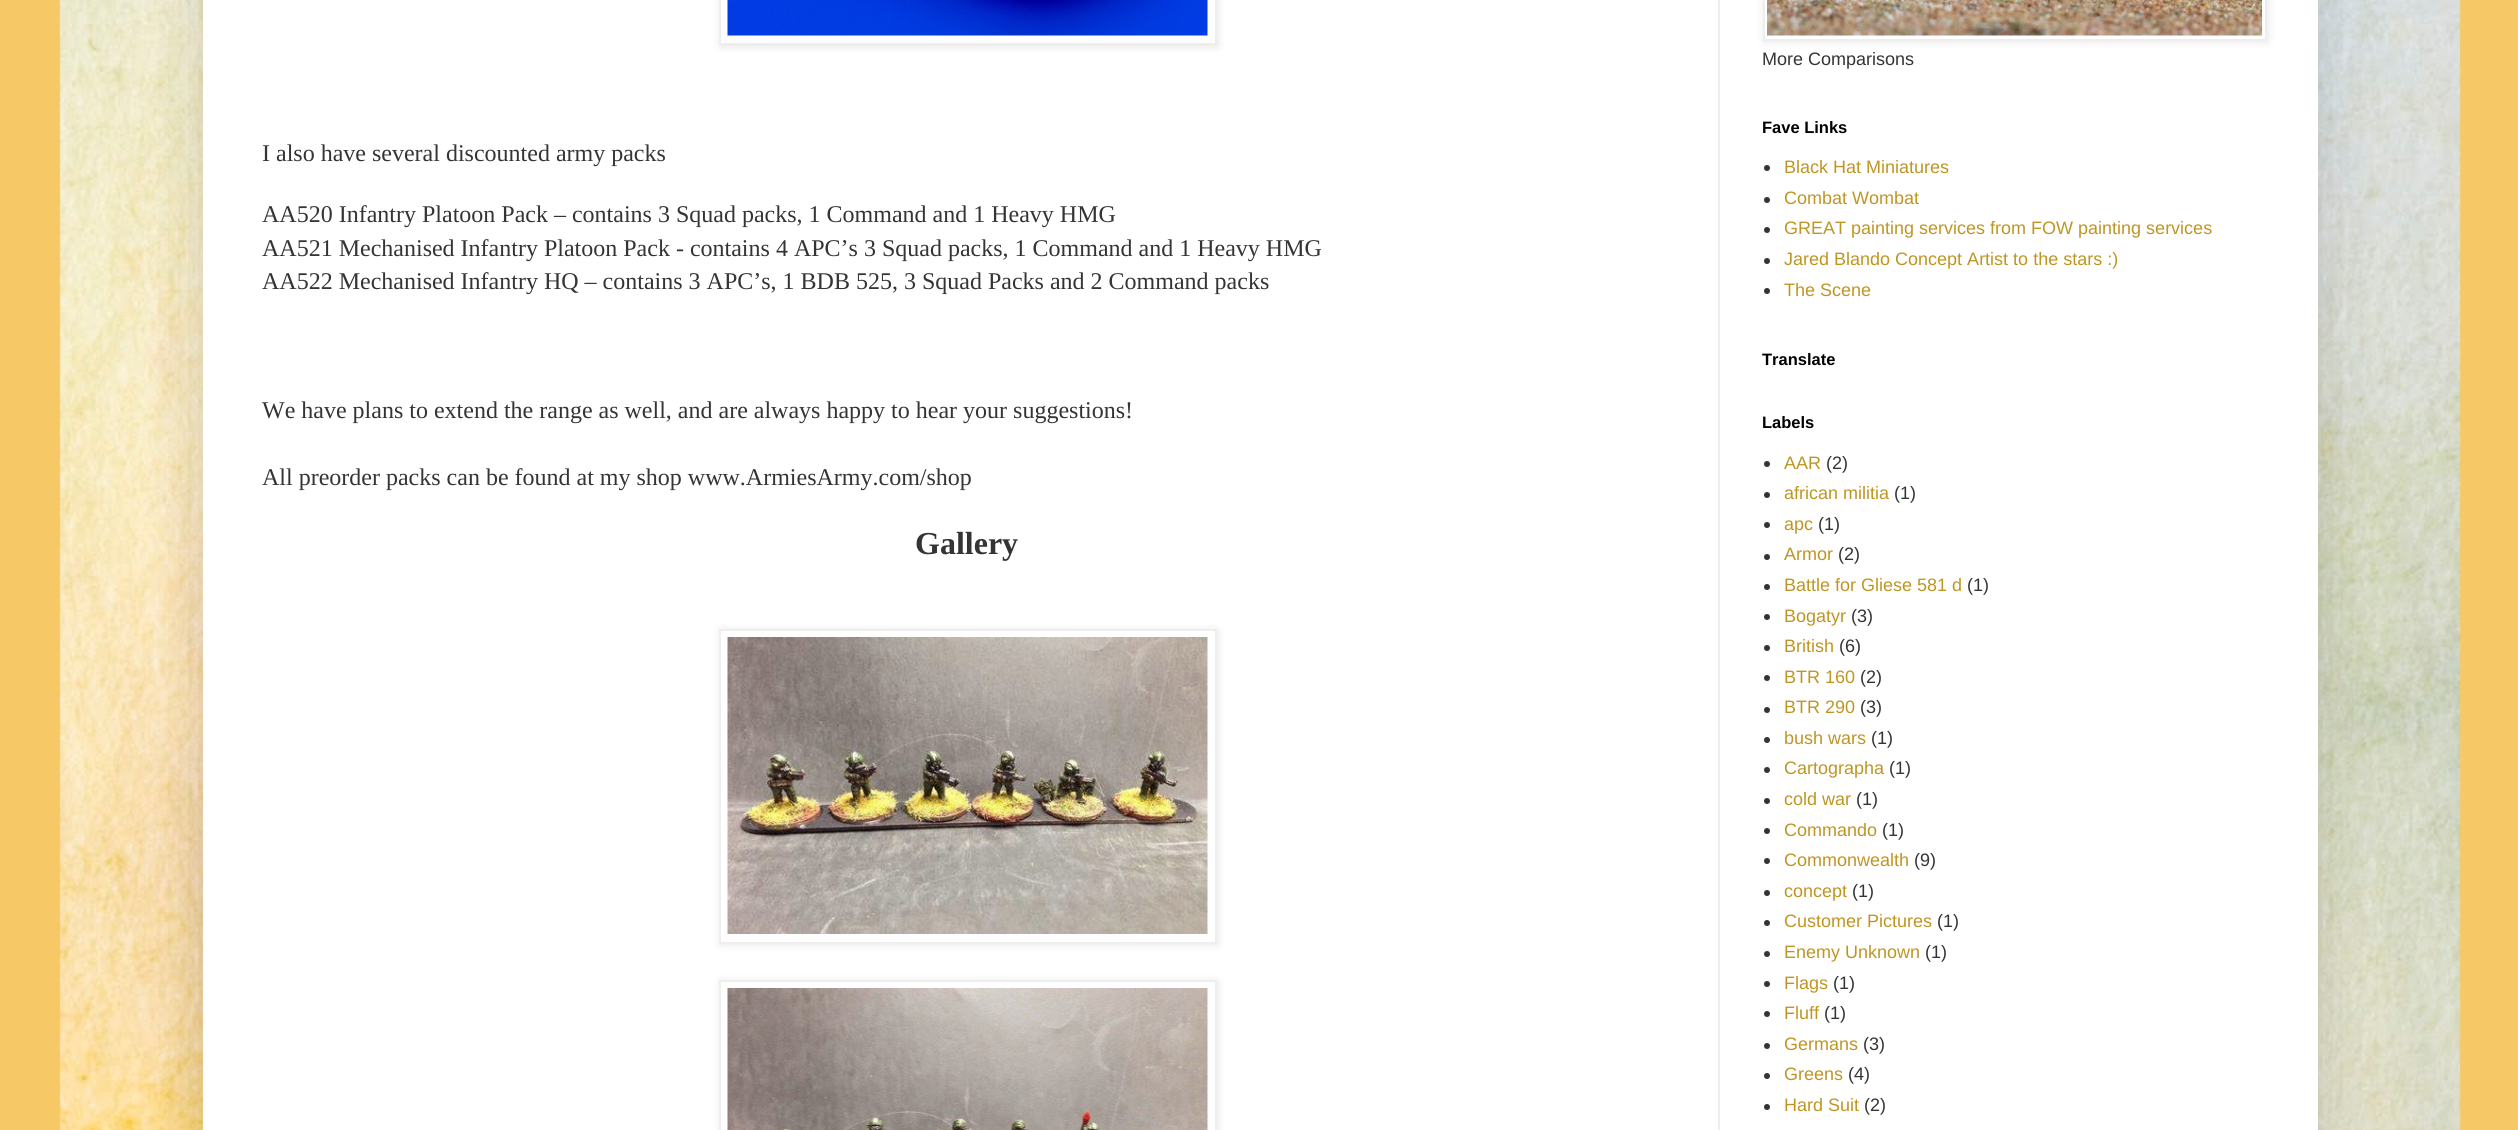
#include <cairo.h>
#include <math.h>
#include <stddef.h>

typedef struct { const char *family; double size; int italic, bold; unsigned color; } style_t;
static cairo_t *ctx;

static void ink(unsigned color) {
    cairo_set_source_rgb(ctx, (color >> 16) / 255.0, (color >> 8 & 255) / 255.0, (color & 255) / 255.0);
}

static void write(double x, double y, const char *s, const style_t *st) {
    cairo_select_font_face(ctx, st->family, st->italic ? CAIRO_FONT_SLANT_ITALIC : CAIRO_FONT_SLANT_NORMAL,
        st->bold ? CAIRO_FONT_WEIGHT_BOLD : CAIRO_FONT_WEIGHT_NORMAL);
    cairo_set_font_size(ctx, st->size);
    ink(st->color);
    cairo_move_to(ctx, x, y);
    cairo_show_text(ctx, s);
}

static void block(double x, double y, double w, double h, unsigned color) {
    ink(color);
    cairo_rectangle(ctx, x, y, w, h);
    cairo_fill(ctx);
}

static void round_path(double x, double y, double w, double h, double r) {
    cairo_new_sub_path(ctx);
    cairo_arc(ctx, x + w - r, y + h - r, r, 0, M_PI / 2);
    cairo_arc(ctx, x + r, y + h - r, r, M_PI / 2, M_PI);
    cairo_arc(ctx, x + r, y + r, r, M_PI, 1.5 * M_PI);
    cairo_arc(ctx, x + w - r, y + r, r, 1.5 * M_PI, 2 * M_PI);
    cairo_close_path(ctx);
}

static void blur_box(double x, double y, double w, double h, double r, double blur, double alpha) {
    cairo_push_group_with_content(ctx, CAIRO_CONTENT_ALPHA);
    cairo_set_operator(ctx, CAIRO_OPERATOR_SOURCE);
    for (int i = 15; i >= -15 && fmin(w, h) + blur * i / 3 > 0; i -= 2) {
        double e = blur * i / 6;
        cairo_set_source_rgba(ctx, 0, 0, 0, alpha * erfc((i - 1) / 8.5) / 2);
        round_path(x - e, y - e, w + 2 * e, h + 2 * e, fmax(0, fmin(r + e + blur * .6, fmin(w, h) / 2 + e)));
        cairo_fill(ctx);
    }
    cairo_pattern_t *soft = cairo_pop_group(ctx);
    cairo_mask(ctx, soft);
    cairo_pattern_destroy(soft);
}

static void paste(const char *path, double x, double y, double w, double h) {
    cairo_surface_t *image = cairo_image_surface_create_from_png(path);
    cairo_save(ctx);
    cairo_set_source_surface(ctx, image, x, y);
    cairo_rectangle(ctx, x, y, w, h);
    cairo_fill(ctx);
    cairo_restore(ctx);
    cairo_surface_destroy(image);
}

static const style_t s1 = {"Liberation Serif", 24, 0, 0, 0x343434};
static const style_t s2 = {"Liberation Serif", 32, 0, 1, 0x343434};
static const style_t s3 = {"Liberation Sans", 18, 0, 0, 0x343434};
static const style_t s4 = {"Liberation Sans", 16.5, 0, 1, 0x000000};
static const style_t s5 = {"Liberation Sans", 18, 0, 0, 0xbf9522};

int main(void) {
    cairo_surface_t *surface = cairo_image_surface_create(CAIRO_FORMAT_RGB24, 2518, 1130);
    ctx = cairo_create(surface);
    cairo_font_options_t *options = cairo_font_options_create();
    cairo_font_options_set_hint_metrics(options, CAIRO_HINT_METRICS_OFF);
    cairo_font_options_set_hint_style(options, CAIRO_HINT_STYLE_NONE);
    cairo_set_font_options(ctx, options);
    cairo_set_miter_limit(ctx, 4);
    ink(0xf6c866);
    cairo_paint(ctx);
    paste("pic1.png", 59, 0, 2402, 1130);
    ink(0x000000);
    blur_box(203, -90, 2115, 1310, 0, 30, 0.15);
    block(203, 0, 2115, 1130, 0xffffff);
    block(1718, 0, 2, 1130, 0xeeeeee);
    ink(0x000000);
    blur_box(720, -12, 498, 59, 0, 4, 0.1);
    ink(0xffffff);
    cairo_rectangle(ctx, 720, -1, 496, 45);
    cairo_fill_preserve(ctx);
    ink(0xeeeeee);
    cairo_stroke(ctx);
    paste("pic2.png", 727, 0, 481, 36);
    write(262, 161, "I also have several discounted army packs", &s1);
    write(262, 222, "AA520 Infantry Platoon Pack – contains 3 Squad packs, 1 Command and 1 Heavy HMG", &s1);
    write(262, 256, "AA521 Mechanised Infantry Platoon Pack - contains 4 APC’s 3 Squad packs, 1 Command and 1 Heavy HMG", &s1);
    write(262, 289, "AA522 Mechanised Infantry HQ – contains 3 APC’s, 1 BDB 525, 3 Squad Packs and 2 Command packs", &s1);
    write(262, 418, "We have plans to extend the range as well, and are always happy to hear your suggestions!", &s1);
    write(262, 485, "All preorder packs can be found at my shop www.ArmiesArmy.com/shop", &s1);
    write(915, 554, "Gallery", &s2);
    ink(0x000000);
    blur_box(720, 630, 498, 315, 0, 4, 0.1);
    ink(0xffffff);
    cairo_rectangle(ctx, 720, 630, 496, 313);
    cairo_fill_preserve(ctx);
    ink(0xeeeeee);
    cairo_stroke(ctx);
    paste("pic3.png", 727, 637, 481, 297);
    ink(0x000000);
    blur_box(720, 981, 498, 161, 0, 4, 0.1);
    ink(0xffffff);
    cairo_rectangle(ctx, 720, 981, 496, 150);
    cairo_fill_preserve(ctx);
    ink(0xeeeeee);
    cairo_stroke(ctx);
    paste("pic4.png", 727, 988, 481, 142);
    ink(0x000000);
    blur_box(1764, -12, 504, 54, 0, 4, 0.1);
    ink(0xffffff);
    cairo_rectangle(ctx, 1764, -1, 502, 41);
    cairo_fill_preserve(ctx);
    ink(0xeeeeee);
    cairo_stroke(ctx);
    paste("pic5.png", 1767, 0, 495, 36);
    write(1762, 65, "More Comparisons", &s3);
    write(1762, 133, "Fave Links", &s4);
    ink(0x343434);
    cairo_new_path(ctx);
    cairo_arc(ctx, 1767, 168, 3, 0, 2 * M_PI);
    cairo_fill(ctx);
    write(1784, 173, "Black Hat Miniatures", &s5);
    ink(0x343434);
    cairo_new_path(ctx);
    cairo_arc(ctx, 1767, 200, 3, 0, 2 * M_PI);
    cairo_fill(ctx);
    write(1784, 204, "Combat Wombat", &s5);
    ink(0x343434);
    cairo_new_path(ctx);
    cairo_arc(ctx, 1767, 230, 3, 0, 2 * M_PI);
    cairo_fill(ctx);
    write(1784, 234, "GREAT painting services from FOW painting services", &s5);
    ink(0x343434);
    cairo_new_path(ctx);
    cairo_arc(ctx, 1767, 261, 3, 0, 2 * M_PI);
    cairo_fill(ctx);
    write(1784, 265, "Jared Blando Concept Artist to the stars :)", &s5);
    ink(0x343434);
    cairo_new_path(ctx);
    cairo_arc(ctx, 1767, 291, 3, 0, 2 * M_PI);
    cairo_fill(ctx);
    write(1784, 296, "The Scene", &s5);
    write(1762, 365, "Translate", &s4);
    write(1762, 428, "Labels", &s4);
    ink(0x343434);
    cairo_new_path(ctx);
    cairo_arc(ctx, 1767, 464, 3, 0, 2 * M_PI);
    cairo_fill(ctx);
    write(1784, 469, "AAR", &s5);
    write(1826, 469, "(2)", &s3);
    cairo_new_path(ctx);
    cairo_arc(ctx, 1767, 495, 3, 0, 2 * M_PI);
    cairo_fill(ctx);
    write(1784, 499, "african militia", &s5);
    write(1894, 499, "(1)", &s3);
    cairo_new_path(ctx);
    cairo_arc(ctx, 1767, 525, 3, 0, 2 * M_PI);
    cairo_fill(ctx);
    write(1784, 530, "apc", &s5);
    write(1818, 530, "(1)", &s3);
    cairo_new_path(ctx);
    cairo_arc(ctx, 1767, 557, 3, 0, 2 * M_PI);
    cairo_fill(ctx);
    write(1784, 560, "Armor", &s5);
    write(1838, 560, "(2)", &s3);
    cairo_new_path(ctx);
    cairo_arc(ctx, 1767, 587, 3, 0, 2 * M_PI);
    cairo_fill(ctx);
    write(1784, 591, "Battle for Gliese 581 d", &s5);
    write(1967, 591, "(1)", &s3);
    cairo_new_path(ctx);
    cairo_arc(ctx, 1767, 617, 3, 0, 2 * M_PI);
    cairo_fill(ctx);
    write(1784, 622, "Bogatyr", &s5);
    write(1851, 622, "(3)", &s3);
    cairo_new_path(ctx);
    cairo_arc(ctx, 1767, 648, 3, 0, 2 * M_PI);
    cairo_fill(ctx);
    write(1784, 652, "British", &s5);
    write(1839, 652, "(6)", &s3);
    cairo_new_path(ctx);
    cairo_arc(ctx, 1767, 678, 3, 0, 2 * M_PI);
    cairo_fill(ctx);
    write(1784, 683, "BTR 160", &s5);
    write(1860, 683, "(2)", &s3);
    cairo_new_path(ctx);
    cairo_arc(ctx, 1767, 710, 3, 0, 2 * M_PI);
    cairo_fill(ctx);
    write(1784, 713, "BTR 290", &s5);
    write(1860, 713, "(3)", &s3);
    cairo_new_path(ctx);
    cairo_arc(ctx, 1767, 740, 3, 0, 2 * M_PI);
    cairo_fill(ctx);
    write(1784, 744, "bush wars", &s5);
    write(1871, 744, "(1)", &s3);
    cairo_new_path(ctx);
    cairo_arc(ctx, 1767, 770, 3, 0, 2 * M_PI);
    cairo_fill(ctx);
    write(1784, 774, "Cartographa", &s5);
    write(1889, 774, "(1)", &s3);
    cairo_new_path(ctx);
    cairo_arc(ctx, 1767, 801, 3, 0, 2 * M_PI);
    cairo_fill(ctx);
    write(1784, 805, "cold war", &s5);
    write(1856, 805, "(1)", &s3);
    cairo_new_path(ctx);
    cairo_arc(ctx, 1767, 831, 3, 0, 2 * M_PI);
    cairo_fill(ctx);
    write(1784, 836, "Commando", &s5);
    write(1882, 836, "(1)", &s3);
    cairo_new_path(ctx);
    cairo_arc(ctx, 1767, 861, 3, 0, 2 * M_PI);
    cairo_fill(ctx);
    write(1784, 866, "Commonwealth", &s5);
    write(1914, 866, "(9)", &s3);
    cairo_new_path(ctx);
    cairo_arc(ctx, 1767, 893, 3, 0, 2 * M_PI);
    cairo_fill(ctx);
    write(1784, 897, "concept", &s5);
    write(1852, 897, "(1)", &s3);
    cairo_new_path(ctx);
    cairo_arc(ctx, 1767, 923, 3, 0, 2 * M_PI);
    cairo_fill(ctx);
    write(1784, 927, "Customer Pictures", &s5);
    write(1937, 927, "(1)", &s3);
    cairo_new_path(ctx);
    cairo_arc(ctx, 1767, 954, 3, 0, 2 * M_PI);
    cairo_fill(ctx);
    write(1784, 958, "Enemy Unknown", &s5);
    write(1925, 958, "(1)", &s3);
    cairo_new_path(ctx);
    cairo_arc(ctx, 1767, 984, 3, 0, 2 * M_PI);
    cairo_fill(ctx);
    write(1784, 989, "Flags", &s5);
    write(1833, 989, "(1)", &s3);
    cairo_new_path(ctx);
    cairo_arc(ctx, 1767, 1014, 3, 0, 2 * M_PI);
    cairo_fill(ctx);
    write(1784, 1019, "Fluff", &s5);
    write(1824, 1019, "(1)", &s3);
    cairo_new_path(ctx);
    cairo_arc(ctx, 1767, 1046, 3, 0, 2 * M_PI);
    cairo_fill(ctx);
    write(1784, 1050, "Germans", &s5);
    write(1863, 1050, "(3)", &s3);
    cairo_new_path(ctx);
    cairo_arc(ctx, 1767, 1076, 3, 0, 2 * M_PI);
    cairo_fill(ctx);
    write(1784, 1080, "Greens", &s5);
    write(1848, 1080, "(4)", &s3);
    cairo_new_path(ctx);
    cairo_arc(ctx, 1767, 1107, 3, 0, 2 * M_PI);
    cairo_fill(ctx);
    write(1784, 1111, "Hard Suit", &s5);
    write(1864, 1111, "(2)", &s3);
    cairo_surface_write_to_png(surface, "screenshot.png");
    cairo_font_options_destroy(options);
    cairo_destroy(ctx);
    cairo_surface_destroy(surface);
    return 0;
}
